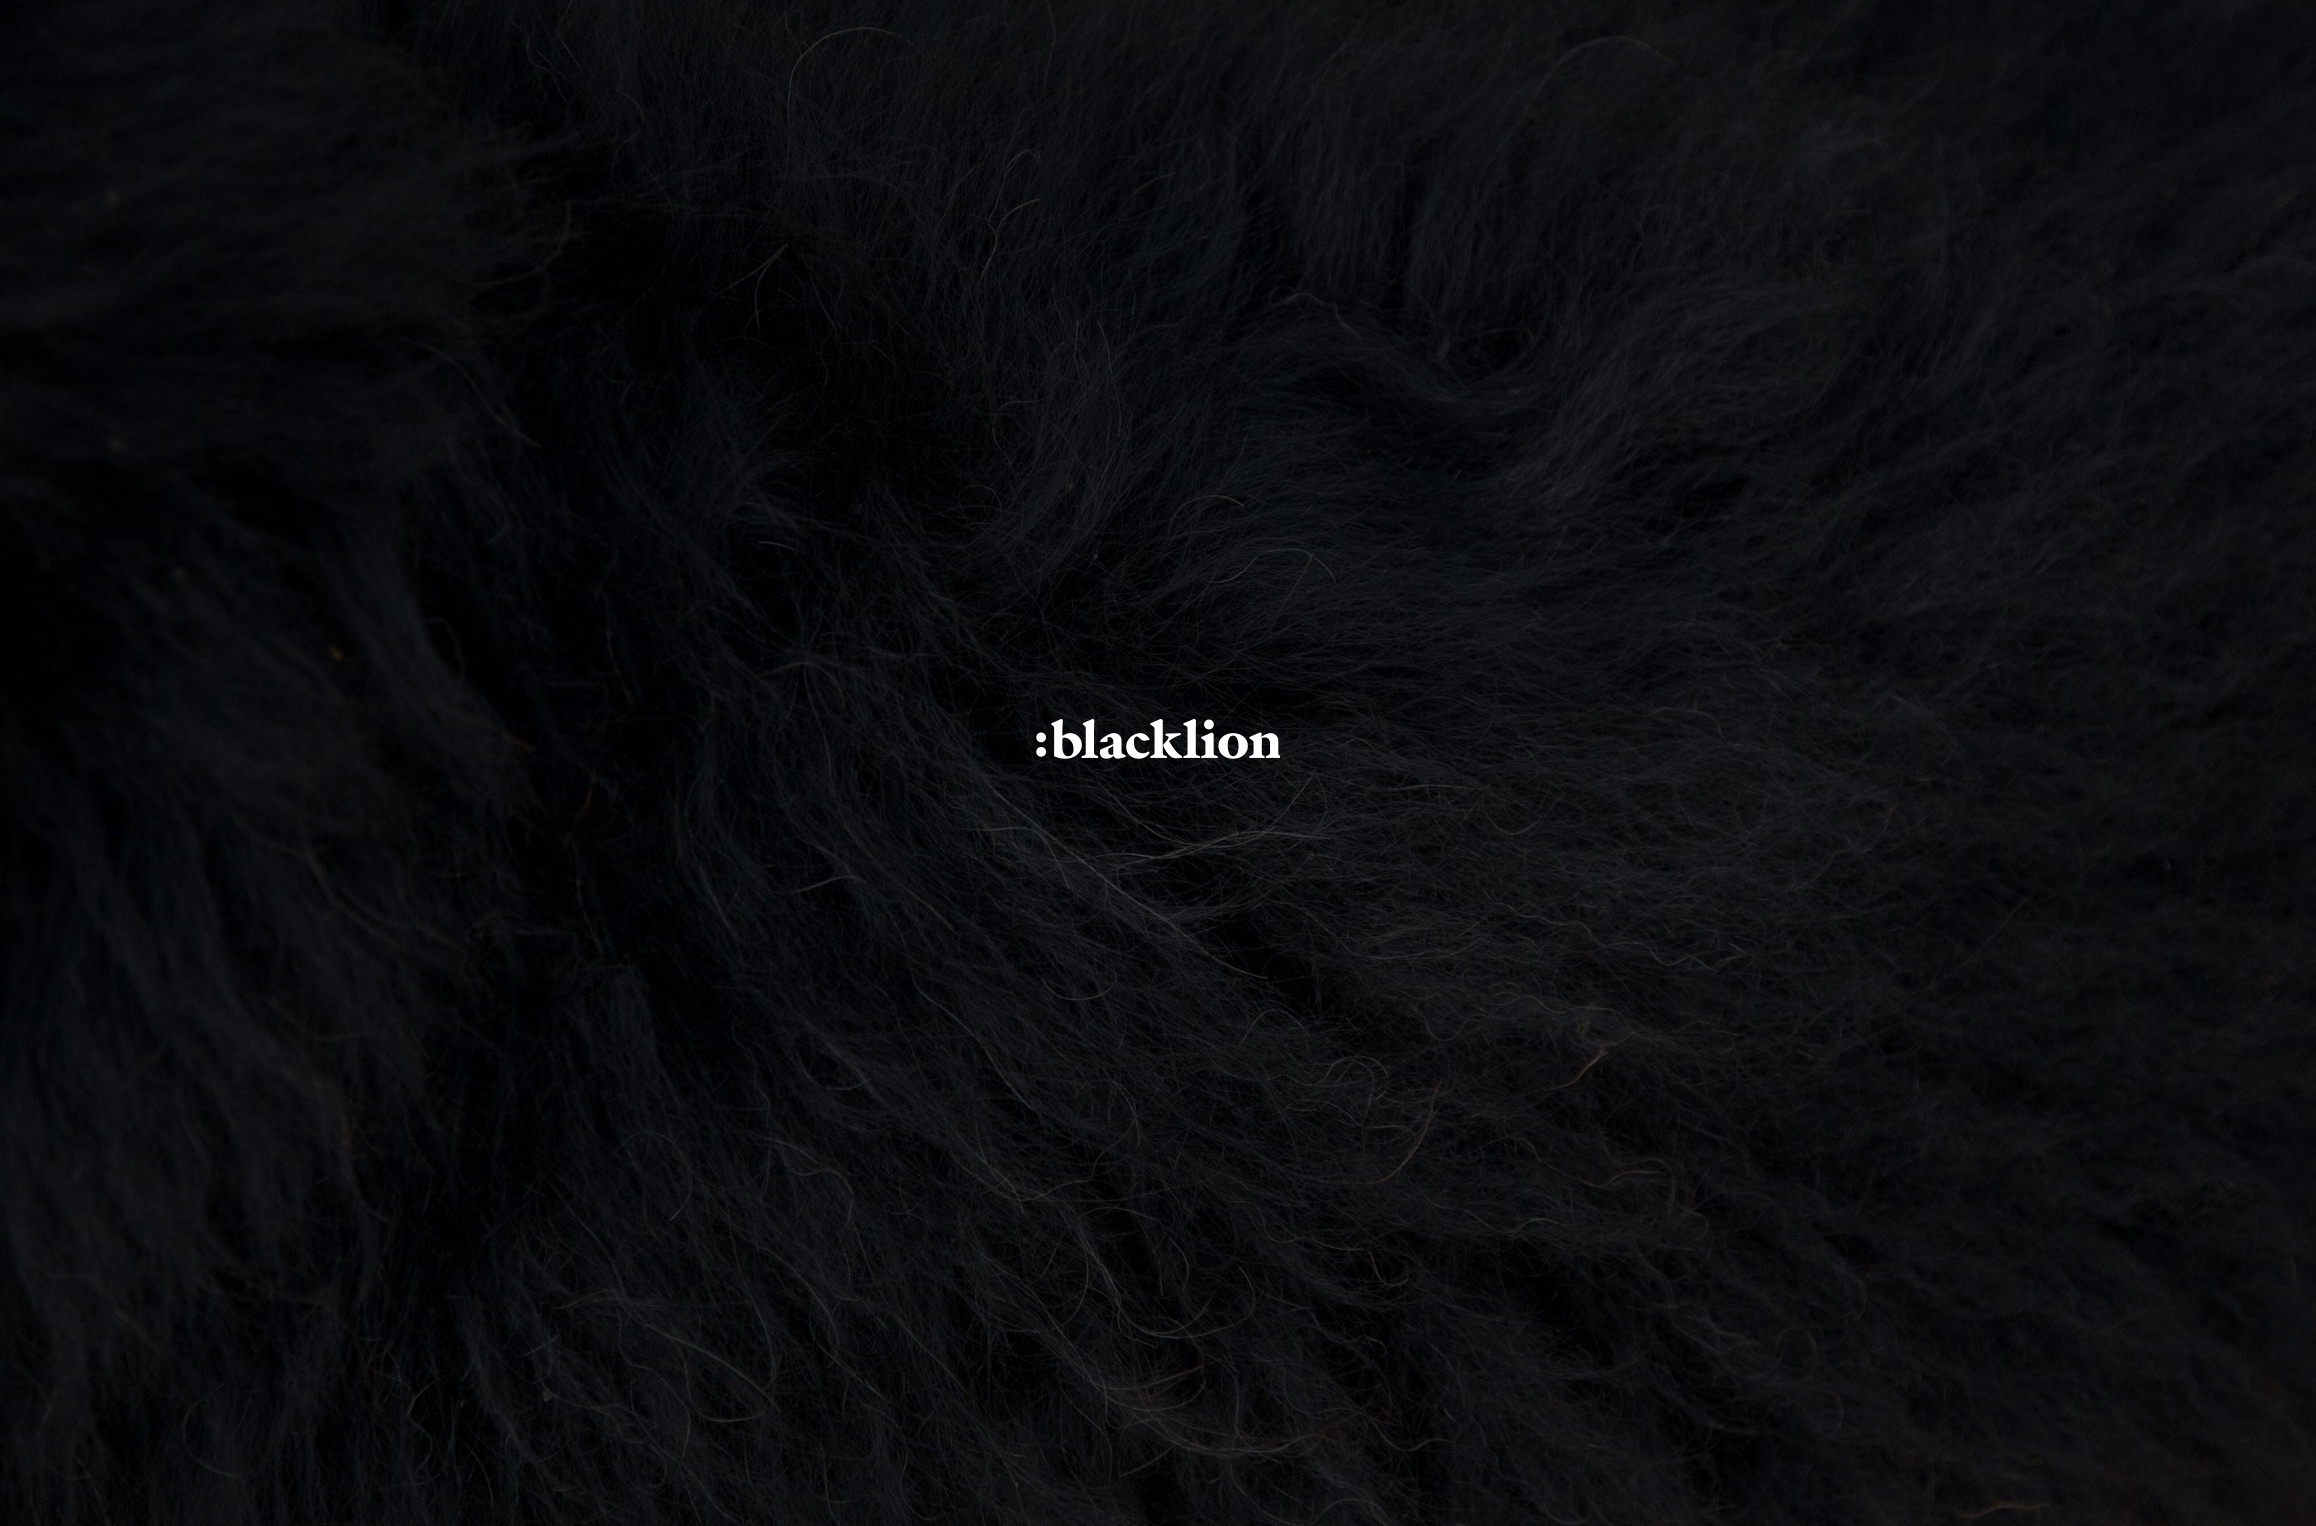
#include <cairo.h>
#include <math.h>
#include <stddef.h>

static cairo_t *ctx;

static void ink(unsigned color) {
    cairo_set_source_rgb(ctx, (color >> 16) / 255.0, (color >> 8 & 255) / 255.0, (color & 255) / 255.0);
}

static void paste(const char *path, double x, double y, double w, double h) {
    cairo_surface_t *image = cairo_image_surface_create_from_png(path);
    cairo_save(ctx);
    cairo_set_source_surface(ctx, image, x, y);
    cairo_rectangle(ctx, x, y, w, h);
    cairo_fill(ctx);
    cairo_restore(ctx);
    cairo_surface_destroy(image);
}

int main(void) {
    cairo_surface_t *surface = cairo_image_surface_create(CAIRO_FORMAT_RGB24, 2316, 1526);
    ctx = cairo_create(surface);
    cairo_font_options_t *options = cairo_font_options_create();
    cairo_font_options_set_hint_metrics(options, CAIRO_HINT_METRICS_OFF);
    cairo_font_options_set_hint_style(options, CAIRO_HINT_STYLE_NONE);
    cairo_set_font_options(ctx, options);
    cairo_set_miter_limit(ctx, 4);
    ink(0xffffff);
    cairo_paint(ctx);
    paste("pic1.png", 0, 0, 2316, 1526);
    paste("pic2.png", 1036, 719, 244, 40);
    cairo_surface_write_to_png(surface, "screenshot.png");
    cairo_font_options_destroy(options);
    cairo_destroy(ctx);
    cairo_surface_destroy(surface);
    return 0;
}
